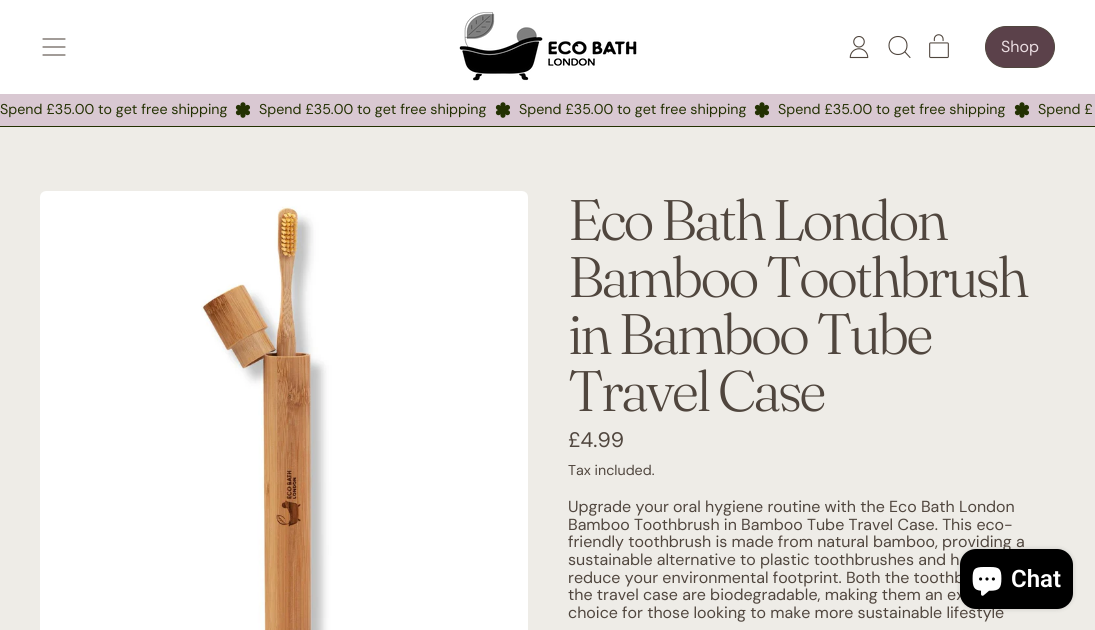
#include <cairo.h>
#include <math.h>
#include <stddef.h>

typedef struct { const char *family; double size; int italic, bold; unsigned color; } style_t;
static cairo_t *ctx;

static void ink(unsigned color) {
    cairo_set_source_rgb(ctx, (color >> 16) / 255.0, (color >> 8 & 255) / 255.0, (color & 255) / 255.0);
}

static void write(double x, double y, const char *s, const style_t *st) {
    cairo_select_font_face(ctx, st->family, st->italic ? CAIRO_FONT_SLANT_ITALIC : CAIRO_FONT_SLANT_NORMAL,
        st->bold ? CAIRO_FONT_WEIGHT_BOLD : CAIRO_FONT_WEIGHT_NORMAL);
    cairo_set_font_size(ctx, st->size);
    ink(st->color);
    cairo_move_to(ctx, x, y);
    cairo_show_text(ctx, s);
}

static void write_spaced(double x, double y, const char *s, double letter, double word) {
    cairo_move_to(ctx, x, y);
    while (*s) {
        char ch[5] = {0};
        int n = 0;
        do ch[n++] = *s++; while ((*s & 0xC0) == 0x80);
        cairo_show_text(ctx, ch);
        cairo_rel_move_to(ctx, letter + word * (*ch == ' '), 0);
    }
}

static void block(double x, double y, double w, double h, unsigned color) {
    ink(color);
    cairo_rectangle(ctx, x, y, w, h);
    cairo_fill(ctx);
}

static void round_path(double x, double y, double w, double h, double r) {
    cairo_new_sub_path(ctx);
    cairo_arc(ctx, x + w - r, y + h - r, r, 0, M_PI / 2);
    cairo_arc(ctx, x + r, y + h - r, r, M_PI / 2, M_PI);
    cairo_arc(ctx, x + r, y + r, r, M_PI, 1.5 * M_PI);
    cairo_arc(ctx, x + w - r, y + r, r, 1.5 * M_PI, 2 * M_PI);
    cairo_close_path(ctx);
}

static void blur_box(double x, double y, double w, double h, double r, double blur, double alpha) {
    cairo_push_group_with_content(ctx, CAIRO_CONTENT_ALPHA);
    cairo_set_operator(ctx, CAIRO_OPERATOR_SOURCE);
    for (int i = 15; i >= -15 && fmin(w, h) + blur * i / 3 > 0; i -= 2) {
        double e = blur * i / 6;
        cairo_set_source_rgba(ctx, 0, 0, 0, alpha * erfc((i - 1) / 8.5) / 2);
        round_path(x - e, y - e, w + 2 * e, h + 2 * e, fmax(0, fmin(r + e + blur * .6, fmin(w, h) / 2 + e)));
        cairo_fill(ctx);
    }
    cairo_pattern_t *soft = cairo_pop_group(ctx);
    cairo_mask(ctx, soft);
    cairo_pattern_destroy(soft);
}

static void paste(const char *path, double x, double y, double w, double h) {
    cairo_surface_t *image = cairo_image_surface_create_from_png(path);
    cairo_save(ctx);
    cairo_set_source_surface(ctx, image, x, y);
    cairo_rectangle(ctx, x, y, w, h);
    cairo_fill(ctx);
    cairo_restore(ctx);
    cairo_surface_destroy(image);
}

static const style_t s1 = {"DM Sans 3", 16, 0, 0, 0xebdde2};
static const style_t s2 = {"DM Sans", 14.25, 0, 0, 0x233102};
static const style_t s3 = {"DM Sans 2", 21, 0, 0, 0x50463e};
static const style_t s4 = {"DM Sans", 14.25, 0, 0, 0x50463e};
static const style_t s5 = {"DM Sans 3", 16, 0, 0, 0x50463e};
static const style_t s6 = {"Roboto SemiBold", 24, 0, 0, 0xffffff};

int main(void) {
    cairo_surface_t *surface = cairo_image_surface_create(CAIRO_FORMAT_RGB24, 1095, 630);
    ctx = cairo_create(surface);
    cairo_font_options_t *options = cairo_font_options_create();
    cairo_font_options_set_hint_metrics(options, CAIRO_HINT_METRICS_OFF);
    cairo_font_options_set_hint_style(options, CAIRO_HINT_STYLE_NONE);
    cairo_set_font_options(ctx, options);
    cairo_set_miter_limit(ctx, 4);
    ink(0xffffff);
    cairo_paint(ctx);
    cairo_new_path(ctx);
    cairo_move_to(ctx, 65, 55);
    cairo_line_to(ctx, 43, 55);
    cairo_move_to(ctx, 65, 47);
    cairo_line_to(ctx, 43, 47);
    cairo_move_to(ctx, 65, 39);
    cairo_line_to(ctx, 43, 39);
    ink(0x50463e);
    cairo_set_line_width(ctx, 1.1);
    cairo_set_line_cap(ctx, CAIRO_LINE_CAP_ROUND);
    cairo_set_line_join(ctx, CAIRO_LINE_JOIN_ROUND);
    cairo_stroke(ctx);
    paste("pic1.png", 459, 12, 178, 69);
    paste("pic2.png", 849, 36, 20, 23);
    cairo_new_path(ctx);
    cairo_move_to(ctx, 889, 45.5);
    cairo_curve_to(ctx, 889, 57.5, 907, 57.5, 907, 45.5);
    cairo_curve_to(ctx, 907, 33.5, 889, 33.5, 889, 45.5);
    cairo_close_path(ctx);
    cairo_move_to(ctx, 910, 57.5);
    cairo_line_to(ctx, 905, 52);
    cairo_stroke(ctx);
    paste("pic3.png", 929, 34, 20, 25);
    ink(0x5b414a);
    round_path(985.5, 26.5, 69, 41, 20.5);
    cairo_fill_preserve(ctx);
    ink(0x50463e);
    cairo_set_line_width(ctx, 1);
    cairo_set_line_cap(ctx, CAIRO_LINE_CAP_BUTT);
    cairo_set_line_join(ctx, CAIRO_LINE_JOIN_MITER);
    cairo_stroke(ctx);
    write(1001, 52, "Shop", &s1);
    block(0, 126, 1095, 1, 0x233102);
    block(0, 94, 1095, 32, 0xd9c8d2);
    write(0, 114, "Spend £35.00 to get free shipping", &s2);
    paste("pic4.png", 235, 102, 15, 16);
    write(259, 114, "Spend £35.00 to get free shipping", &s2);
    paste("pic4.png", 495, 102, 15, 16);
    write(519, 114, "Spend £35.00 to get free shipping", &s2);
    paste("pic4.png", 754, 102, 15, 16);
    write(778, 114, "Spend £35.00 to get free shipping", &s2);
    paste("pic4.png", 1014, 102, 15, 16);
    write(1038, 114, "Spend £", &s2);
    block(0, 127, 1095, 503, 0xeeece7);
    paste("pic5.png", 40, 191, 488, 439);
    cairo_select_font_face(ctx, "Fraunces Light", CAIRO_FONT_SLANT_NORMAL, CAIRO_FONT_WEIGHT_NORMAL);
    cairo_set_font_size(ctx, 57);
    ink(0x50463e);
    write_spaced(568, 240, "Eco Bath London", -2.8, 0);
    write_spaced(568, 297, "Bamboo Toothbrush", -2.8, 0);
    write_spaced(568, 354, "in Bamboo Tube", -2.8, 0);
    write_spaced(568, 411, "Travel Case", -2.8, 0);
    write(568, 447, "£4.99", &s3);
    write(568, 475, "Tax included.", &s4);
    write(568, 512, "Upgrade your oral hygiene routine with the Eco Bath London", &s5);
    write(568, 530, "Bamboo Toothbrush in Bamboo Tube Travel Case. This eco-", &s5);
    write(568, 547, "friendly toothbrush is made from natural bamboo, providing a", &s5);
    write(568, 565, "sustainable alternative to plastic toothbrushes and h", &s5);
    write(568, 583, "reduce your environmental footprint. Both the toothb", &s5);
    write(568, 600, "the travel case are biodegradable, making them an ex", &s5);
    write(568, 618, "choice for those looking to make more sustainable lifestyle", &s5);
    ink(0x000000);
    blur_box(960, 549, 113, 60, 16, 2.5, 0.15);
    ink(0x000000);
    round_path(960, 549, 113, 60, 16);
    cairo_fill(ctx);
    paste("pic6.png", 972, 567, 30, 29);
    write(1011, 587, "Chat", &s6);
    cairo_surface_write_to_png(surface, "screenshot.png");
    cairo_font_options_destroy(options);
    cairo_destroy(ctx);
    cairo_surface_destroy(surface);
    return 0;
}
